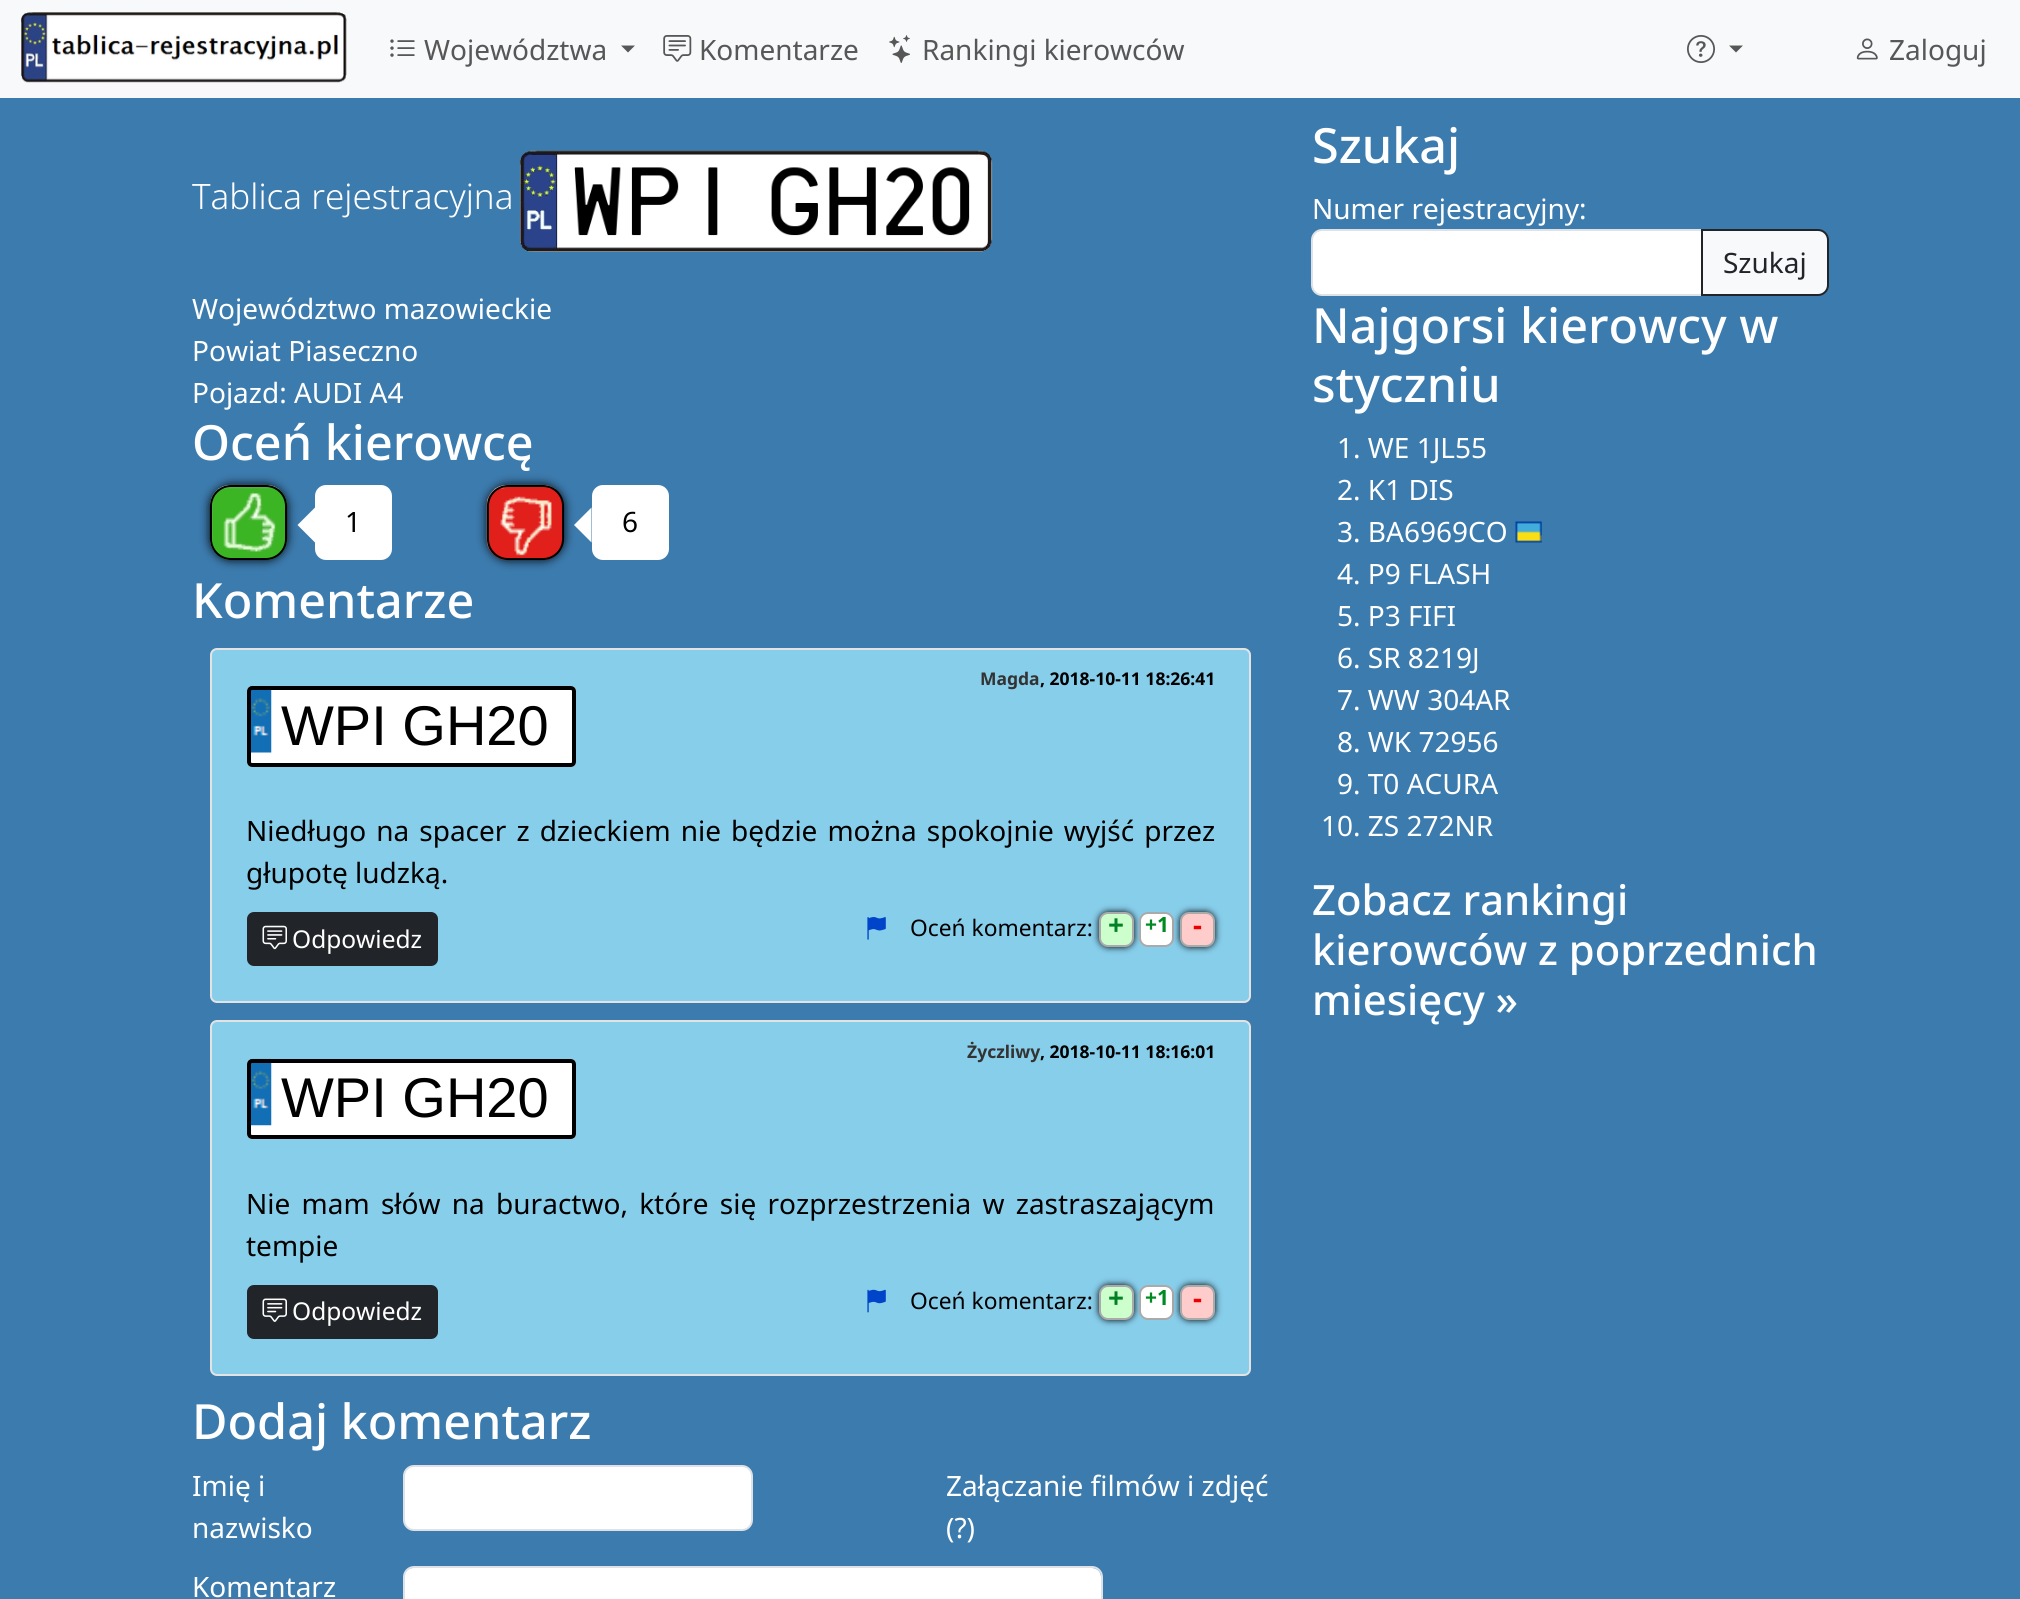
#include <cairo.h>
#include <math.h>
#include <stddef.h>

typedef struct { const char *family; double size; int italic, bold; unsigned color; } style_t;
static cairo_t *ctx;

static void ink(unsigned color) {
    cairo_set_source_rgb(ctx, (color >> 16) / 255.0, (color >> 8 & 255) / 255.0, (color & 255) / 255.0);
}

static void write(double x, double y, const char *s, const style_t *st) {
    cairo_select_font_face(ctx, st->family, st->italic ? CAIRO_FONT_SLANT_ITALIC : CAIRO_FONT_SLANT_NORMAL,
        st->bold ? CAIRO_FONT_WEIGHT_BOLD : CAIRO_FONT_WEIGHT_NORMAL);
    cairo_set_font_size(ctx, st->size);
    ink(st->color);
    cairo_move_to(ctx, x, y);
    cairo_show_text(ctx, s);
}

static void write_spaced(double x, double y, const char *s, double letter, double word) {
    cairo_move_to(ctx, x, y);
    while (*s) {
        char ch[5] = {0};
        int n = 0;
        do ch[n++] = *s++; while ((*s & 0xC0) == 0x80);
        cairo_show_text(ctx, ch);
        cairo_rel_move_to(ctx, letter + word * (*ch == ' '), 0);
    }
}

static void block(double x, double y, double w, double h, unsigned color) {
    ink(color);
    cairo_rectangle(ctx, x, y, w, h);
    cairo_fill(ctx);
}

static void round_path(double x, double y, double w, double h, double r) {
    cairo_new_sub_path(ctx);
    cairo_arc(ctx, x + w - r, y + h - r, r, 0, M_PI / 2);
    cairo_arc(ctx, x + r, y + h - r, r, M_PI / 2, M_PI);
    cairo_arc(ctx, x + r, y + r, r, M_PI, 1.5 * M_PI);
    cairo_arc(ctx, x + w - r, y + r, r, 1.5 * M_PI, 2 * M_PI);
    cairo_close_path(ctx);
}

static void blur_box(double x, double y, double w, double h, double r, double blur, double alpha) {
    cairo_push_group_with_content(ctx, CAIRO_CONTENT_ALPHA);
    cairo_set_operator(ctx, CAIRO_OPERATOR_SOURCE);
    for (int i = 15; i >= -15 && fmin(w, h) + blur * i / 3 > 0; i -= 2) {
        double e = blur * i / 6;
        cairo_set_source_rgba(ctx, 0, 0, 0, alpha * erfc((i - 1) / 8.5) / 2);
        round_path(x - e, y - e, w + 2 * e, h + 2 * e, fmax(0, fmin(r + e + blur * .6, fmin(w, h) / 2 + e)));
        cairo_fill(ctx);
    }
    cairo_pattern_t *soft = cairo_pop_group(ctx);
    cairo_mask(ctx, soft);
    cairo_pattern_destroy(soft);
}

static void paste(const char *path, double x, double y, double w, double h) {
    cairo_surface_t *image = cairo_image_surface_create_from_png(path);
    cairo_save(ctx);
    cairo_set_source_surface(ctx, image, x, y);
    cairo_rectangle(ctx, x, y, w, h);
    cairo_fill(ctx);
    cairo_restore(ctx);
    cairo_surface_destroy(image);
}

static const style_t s1 = {"Noto Sans", 28, 0, 0, 0x575758};
static const style_t s2 = {"Noto Sans Light", 35, 0, 0, 0xffffff};
static const style_t s3 = {"Noto Sans", 28, 0, 0, 0xffffff};
static const style_t s4 = {"Noto Sans Medium", 48.5, 0, 0, 0xffffff};
static const style_t s5 = {"Noto Sans", 28, 0, 0, 0x000000};
static const style_t s6 = {"Noto Sans", 17.5, 0, 1, 0x333333};
static const style_t s7 = {"Noto Sans", 17.5, 0, 1, 0x000000};
static const style_t s8 = {"Liberation Sans", 56, 0, 0, 0x000000};
static const style_t s9 = {"Noto Sans", 22.75, 0, 0, 0x000000};
static const style_t s10 = {"Noto Sans", 28, 0, 1, 0x008123};
static const style_t s11 = {"Noto Sans", 21, 0, 1, 0x008a22};
static const style_t s12 = {"Noto Sans", 28, 0, 1, 0xee0000};
static const style_t s13 = {"Noto Sans", 24.5, 0, 0, 0xffffff};
static const style_t s14 = {"Noto Sans", 28, 0, 0, 0x212529};
static const style_t s15 = {"Noto Sans Medium", 41.75, 0, 0, 0xffffff};

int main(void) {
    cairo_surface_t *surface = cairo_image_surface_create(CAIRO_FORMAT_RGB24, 2020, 1599);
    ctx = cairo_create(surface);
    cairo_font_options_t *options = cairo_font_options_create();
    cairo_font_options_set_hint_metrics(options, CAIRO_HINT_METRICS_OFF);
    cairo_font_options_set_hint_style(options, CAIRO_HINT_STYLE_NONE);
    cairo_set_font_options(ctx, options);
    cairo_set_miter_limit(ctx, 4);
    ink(0x3c7bae);
    cairo_paint(ctx);
    block(0, 0, 2020, 98, 0xf8f9fa);
    paste("pic1.png", 21, 12, 326, 71);
    paste("pic2.png", 390, 39, 25, 18);
    write(424, 60, "Województwa", &s1);
    cairo_new_path(ctx);
    cairo_move_to(ctx, 621, 45.5);
    cairo_line_to(ctx, 635, 45.5);
    cairo_line_to(ctx, 628, 52.5);
    cairo_close_path(ctx);
    cairo_fill(ctx);
    paste("pic3.png", 663, 35, 29, 27);
    write(699, 60, "Komentarze", &s1);
    paste("pic4.png", 889, 35, 21, 28);
    write(922, 60, "Rankingi kierowców", &s1);
    paste("pic5.png", 1687, 35, 28, 28);
    cairo_new_path(ctx);
    cairo_move_to(ctx, 1729, 45.5);
    cairo_line_to(ctx, 1743, 45.5);
    cairo_line_to(ctx, 1736, 52.5);
    cairo_close_path(ctx);
    cairo_fill(ctx);
    paste("pic6.png", 1856, 38, 22, 22);
    write(1889, 60, "Zaloguj", &s1);
    write(192, 209, "Tablica rejestracyjna", &s2);
    paste("pic7.png", 519, 150, 474, 102);
    write(192, 319, "Województwo mazowieckie", &s3);
    write(192, 361, "Powiat Piaseczno", &s3);
    write(192, 403, "Pojazd: AUDI A4", &s3);
    ink(0x000000);
    blur_box(210, 485, 77, 75, 21, 5, 1);
    blur_box(487, 485, 77, 75, 21, 5, 1);
    write(192, 460, "Oceń kierowcę", &s4);
    paste("pic8.png", 210, 484, 77, 76);
    round_path(211, 486, 75, 73, 20);
    ink(0x000000);
    cairo_stroke(ctx);
    ink(0xffffff);
    cairo_new_path(ctx);
    cairo_move_to(ctx, 315, 507.5);
    cairo_line_to(ctx, 315, 542.5);
    cairo_line_to(ctx, 297.5, 525);
    cairo_close_path(ctx);
    cairo_fill(ctx);
    round_path(315, 485, 77, 75, 11);
    cairo_fill(ctx);
    write(345, 532, "1", &s5);
    paste("pic9.png", 486, 484, 78, 76);
    round_path(488, 486, 75, 73, 20);
    cairo_stroke(ctx);
    ink(0xffffff);
    cairo_new_path(ctx);
    cairo_move_to(ctx, 591.5, 507.5);
    cairo_line_to(ctx, 591.5, 542.5);
    cairo_line_to(ctx, 574, 525);
    cairo_close_path(ctx);
    cairo_fill(ctx);
    round_path(592, 485, 77, 75, 11);
    cairo_fill(ctx);
    write(622, 532, "6", &s5);
    write(192, 618, "Komentarze", &s4);
    ink(0x87ceeb);
    round_path(211, 649, 1039, 353, 6);
    cairo_fill_preserve(ctx);
    ink(0xe3e3e3);
    cairo_stroke(ctx);
    write(980, 685, "Magda", &s6);
    write(1040, 685, ", 2018-10-11 18:26:41", &s7);
    ink(0xffffff);
    round_path(247, 686, 329, 81, 5);
    cairo_fill(ctx);
    paste("pic10.png", 250, 686, 22, 67);
    round_path(249, 688, 325, 77, 3);
    ink(0x000000);
    cairo_set_line_width(ctx, 4);
    cairo_stroke(ctx);
    write(281, 745, "WPI GH20", &s8);
    cairo_select_font_face(ctx, "Noto Sans", CAIRO_FONT_SLANT_NORMAL, CAIRO_FONT_WEIGHT_NORMAL);
    cairo_set_font_size(ctx, 28);
    write_spaced(246, 841, "Niedługo na spacer z dzieckiem nie będzie można spokojnie wyjść przez", 0, 2.75);
    write(246, 883, "głupotę ludzką.", &s5);
    paste("pic11.png", 867, 917, 19, 23);
    write(910, 936, "Oceń komentarz:", &s9);
    ink(0x000000);
    blur_box(1099, 912, 35, 35, 9, 3.5, 1);
    ink(0xccffcc);
    round_path(1100, 913, 33, 33, 8);
    cairo_fill_preserve(ctx);
    ink(0xaaaaaa);
    cairo_set_line_width(ctx, 2);
    cairo_stroke(ctx);
    write(1108, 935, "+", &s10);
    ink(0xffffff);
    round_path(1140, 913, 33, 33, 8);
    cairo_fill_preserve(ctx);
    ink(0xaaaaaa);
    cairo_stroke(ctx);
    write(1145, 932, "+1", &s11);
    ink(0x000000);
    blur_box(1180, 912, 35, 35, 9, 3.5, 1);
    ink(0xffcccc);
    round_path(1181, 913, 33, 33, 8);
    cairo_fill_preserve(ctx);
    ink(0xaaaaaa);
    cairo_stroke(ctx);
    write(1193, 935, "-", &s12);
    ink(0x212529);
    round_path(248, 913, 189, 52, 6);
    cairo_fill_preserve(ctx);
    cairo_stroke(ctx);
    paste("pic12.png", 262, 925, 25, 25);
    write(292, 948, "Odpowiedz", &s13);
    ink(0x87ceeb);
    round_path(211, 1021, 1039, 354, 6);
    cairo_fill_preserve(ctx);
    ink(0xe3e3e3);
    cairo_stroke(ctx);
    write(967, 1058, "Życzliwy", &s6);
    write(1040, 1058, ", 2018-10-11 18:16:01", &s7);
    ink(0xffffff);
    round_path(247, 1059, 329, 80, 5);
    cairo_fill(ctx);
    paste("pic13.png", 250, 1058, 22, 68);
    round_path(249, 1061, 325, 76, 3);
    ink(0x000000);
    cairo_set_line_width(ctx, 4);
    cairo_stroke(ctx);
    write(281, 1117, "WPI GH20", &s8);
    cairo_select_font_face(ctx, "Noto Sans", CAIRO_FONT_SLANT_NORMAL, CAIRO_FONT_WEIGHT_NORMAL);
    cairo_set_font_size(ctx, 28);
    write_spaced(246, 1214, "Nie mam słów na buractwo, które się rozprzestrzenia w zastraszającym", 0, 4);
    write(246, 1256, "tempie", &s5);
    ink(0x212529);
    round_path(248, 1286, 189, 52, 6);
    cairo_fill_preserve(ctx);
    cairo_set_line_width(ctx, 2);
    cairo_stroke(ctx);
    paste("pic14.png", 262, 1298, 25, 24);
    write(292, 1320, "Odpowiedz", &s13);
    paste("pic15.png", 867, 1289, 19, 24);
    write(910, 1309, "Oceń komentarz:", &s9);
    ink(0x000000);
    blur_box(1099, 1285, 35, 35, 9, 3.5, 1);
    ink(0xccffcc);
    round_path(1100, 1286, 33, 33, 8);
    cairo_fill_preserve(ctx);
    ink(0xaaaaaa);
    cairo_stroke(ctx);
    write(1108, 1308, "+", &s10);
    ink(0xffffff);
    round_path(1140, 1286, 33, 33, 8);
    cairo_fill_preserve(ctx);
    ink(0xaaaaaa);
    cairo_stroke(ctx);
    write(1145, 1305, "+1", &s11);
    ink(0x000000);
    blur_box(1180, 1285, 35, 35, 9, 3.5, 1);
    ink(0xffcccc);
    round_path(1181, 1286, 33, 33, 8);
    cairo_fill_preserve(ctx);
    ink(0xaaaaaa);
    cairo_stroke(ctx);
    write(1193, 1308, "-", &s12);
    write(192, 1439, "Dodaj komentarz", &s4);
    write(192, 1496, "Imię i", &s3);
    write(192, 1538, "nazwisko", &s3);
    round_path(404, 1466, 348, 64, 10);
    cairo_fill_preserve(ctx);
    ink(0xdee2e6);
    cairo_stroke(ctx);
    write(192, 1597, "Komentarz", &s3);
    round_path(404, 1568, 697, 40, 9);
    cairo_fill(ctx);
    round_path(404, 1567, 698, 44, 10);
    ink(0xdee2e6);
    cairo_stroke(ctx);
    write(946, 1496, "Załączanie filmów i zdjęć", &s3);
    write(946, 1538, "(?)", &s3);
    write(1312, 163, "Szukaj", &s4);
    write(1312, 219, "Numer rejestracyjny:", &s3);
    cairo_new_path(ctx);
    cairo_move_to(ctx, 1322, 230);
    cairo_line_to(ctx, 1702, 230);
    cairo_line_to(ctx, 1702, 295);
    cairo_line_to(ctx, 1322, 295);
    cairo_curve_to(ctx, 1316.5, 295, 1312, 290.5, 1312, 285);
    cairo_line_to(ctx, 1312, 240);
    cairo_curve_to(ctx, 1312, 234.5, 1316.5, 230, 1322, 230);
    cairo_close_path(ctx);
    cairo_fill_preserve(ctx);
    ink(0xdee2e6);
    cairo_stroke(ctx);
    ink(0xf8f9fa);
    cairo_new_path(ctx);
    cairo_move_to(ctx, 1702, 230);
    cairo_line_to(ctx, 1818, 230);
    cairo_curve_to(ctx, 1823.5, 230, 1828, 234.5, 1828, 240);
    cairo_line_to(ctx, 1828, 285);
    cairo_curve_to(ctx, 1828, 290.5, 1823.5, 295, 1818, 295);
    cairo_line_to(ctx, 1702, 295);
    cairo_close_path(ctx);
    cairo_fill_preserve(ctx);
    ink(0x212529);
    cairo_stroke(ctx);
    write(1723, 273, "Szukaj", &s14);
    write(1312, 343, "Najgorsi kierowcy w", &s4);
    write(1312, 402, "styczniu", &s4);
    write(1337, 458, "1. WE 1JL55", &s3);
    write(1337, 500, "2. K1 DIS", &s3);
    write(1337, 542, "3. BA6969CO", &s3);
    paste("pic16.png", 1515, 521, 27, 22);
    write(1337, 584, "4. P9 FLASH", &s3);
    write(1337, 626, "5. P3 FIFI", &s3);
    write(1337, 668, "6. SR 8219J", &s3);
    write(1337, 710, "7. WW 304AR", &s3);
    write(1337, 752, "8. WK 72956", &s3);
    write(1337, 794, "9. T0 ACURA", &s3);
    write(1321, 836, "10. ZS 272NR", &s3);
    write(1312, 915, "Zobacz rankingi", &s15);
    write(1312, 965, "kierowców z poprzednich", &s15);
    write(1312, 1015, "miesięcy »", &s15);
    cairo_surface_write_to_png(surface, "screenshot.png");
    cairo_font_options_destroy(options);
    cairo_destroy(ctx);
    cairo_surface_destroy(surface);
    return 0;
}
